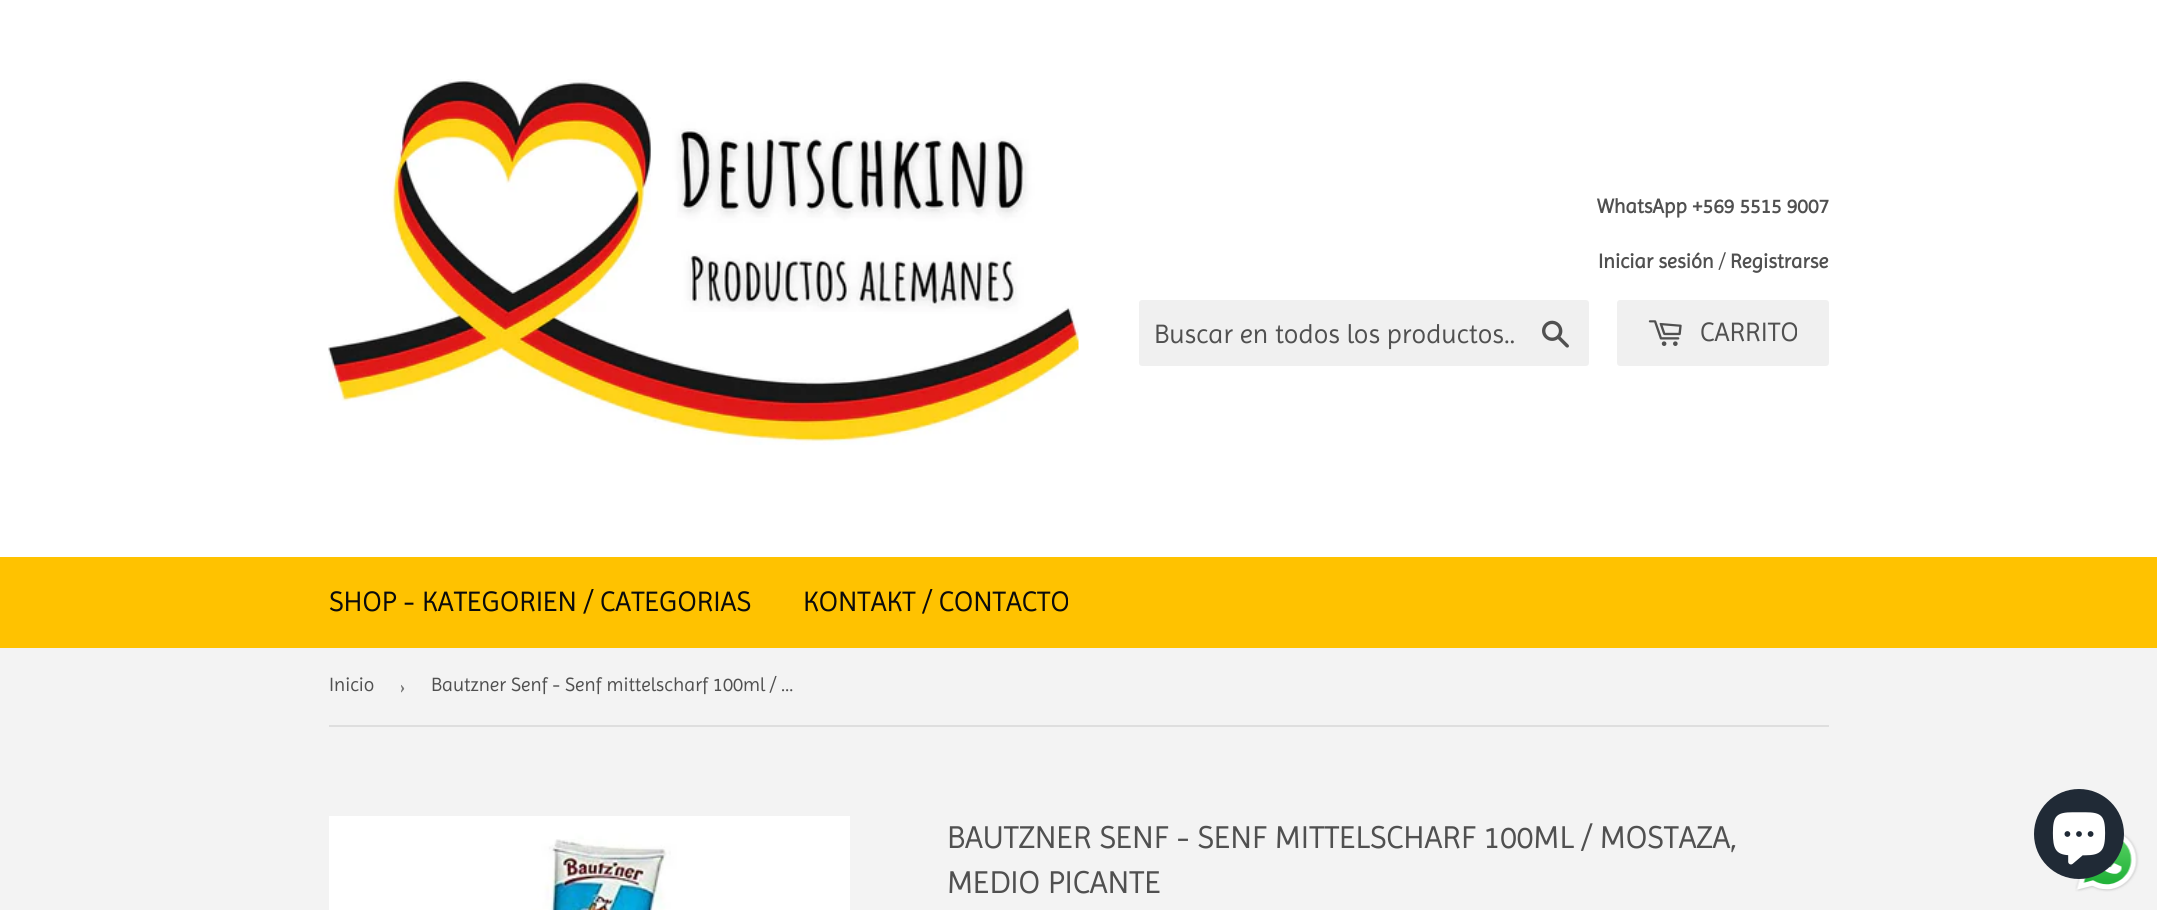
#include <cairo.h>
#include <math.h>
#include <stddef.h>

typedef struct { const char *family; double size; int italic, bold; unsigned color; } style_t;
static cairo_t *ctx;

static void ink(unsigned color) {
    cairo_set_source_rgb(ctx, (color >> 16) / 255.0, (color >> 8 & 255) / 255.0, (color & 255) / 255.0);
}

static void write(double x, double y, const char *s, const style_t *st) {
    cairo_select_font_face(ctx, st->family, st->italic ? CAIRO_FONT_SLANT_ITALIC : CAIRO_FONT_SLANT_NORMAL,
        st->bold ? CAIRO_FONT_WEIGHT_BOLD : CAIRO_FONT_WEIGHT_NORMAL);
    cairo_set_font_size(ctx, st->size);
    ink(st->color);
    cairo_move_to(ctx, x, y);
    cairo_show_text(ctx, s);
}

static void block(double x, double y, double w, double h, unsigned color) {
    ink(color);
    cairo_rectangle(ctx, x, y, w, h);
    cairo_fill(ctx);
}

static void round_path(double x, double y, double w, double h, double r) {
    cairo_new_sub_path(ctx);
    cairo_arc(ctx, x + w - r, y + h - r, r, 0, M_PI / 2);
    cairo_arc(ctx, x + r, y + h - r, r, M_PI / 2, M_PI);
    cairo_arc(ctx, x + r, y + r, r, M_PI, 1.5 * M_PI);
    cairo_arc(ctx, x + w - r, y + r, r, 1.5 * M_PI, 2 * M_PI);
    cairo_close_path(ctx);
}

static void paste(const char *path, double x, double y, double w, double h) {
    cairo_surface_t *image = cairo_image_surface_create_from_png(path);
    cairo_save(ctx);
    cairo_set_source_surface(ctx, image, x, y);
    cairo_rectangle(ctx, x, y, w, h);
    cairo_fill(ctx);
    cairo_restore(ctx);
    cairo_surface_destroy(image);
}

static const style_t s1 = {"Imprima", 20.4, 0, 1, 0x505050};
static const style_t s2 = {"Imprima", 20.4, 0, 0, 0x505050};
static const style_t s3 = {"Imprima", 27, 0, 0, 0x505050};
static const style_t s4 = {"Imprima", 28.5, 0, 0, 0x0b0b0b};
static const style_t s5 = {"Imprima", 19.5, 0, 0, 0x505050};
static const style_t s6 = {"Imprima", 22, 0, 0, 0x767676};
static const style_t s7 = {"Imprima", 32, 0, 0, 0x505050};

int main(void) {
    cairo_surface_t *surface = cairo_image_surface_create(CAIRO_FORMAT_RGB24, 2157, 910);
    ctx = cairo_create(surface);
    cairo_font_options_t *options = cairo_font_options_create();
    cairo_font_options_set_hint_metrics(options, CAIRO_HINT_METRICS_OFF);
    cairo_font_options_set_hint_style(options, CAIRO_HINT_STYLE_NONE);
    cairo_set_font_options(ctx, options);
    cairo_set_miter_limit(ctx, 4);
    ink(0xf3f3f3);
    cairo_paint(ctx);
    block(0, 0, 2157, 557, 0xffffff);
    paste("pic1.png", 328, 79, 751, 366);
    write(1597, 213, "WhatsApp +569 5515 9007", &s1);
    write(1598, 268, "Iniciar sesión", &s1);
    write(1719, 268, "/", &s2);
    write(1730, 268, "Registrarse", &s1);
    ink(0xf0f0f0);
    round_path(1139, 300, 450, 66, 3);
    cairo_fill(ctx);
    write(1154, 343, "Buscar en todos los productos..", &s3);
    paste("pic2.png", 1542, 320, 27, 28);
    ink(0xf0f0f0);
    round_path(1617, 300, 212, 66, 3);
    cairo_fill(ctx);
    paste("pic3.png", 1648, 320, 34, 26);
    write(1700, 341, "CARRITO", &s3);
    block(0, 557, 2157, 91, 0xffc200);
    write(329, 611, "SHOP - KATEGORIEN / CATEGORIAS", &s4);
    write(803, 611, "KONTAKT / CONTACTO", &s4);
    block(329, 725, 1500, 2, 0xdedede);
    write(329, 691, "Inicio", &s5);
    cairo_save(ctx);
    cairo_rectangle(ctx, 401, 648, 15, 75);
    cairo_clip(ctx);
    write(400, 694, "›", &s6);
    cairo_restore(ctx);
    write(431, 691, "Bautzner Senf - Senf mittelscharf 100ml / …", &s5);
    paste("pic4.png", 329, 816, 521, 94);
    write(947, 848, "BAUTZNER SENF - SENF MITTELSCHARF 100ML / MOSTAZA,", &s7);
    write(947, 893, "MEDIO PICANTE", &s7);
    paste("pic6.png", 2075, 832, 64, 60);
    ink(0x202a36);
    cairo_arc(ctx, 2079, 834, 45, 0, 2 * M_PI);
    cairo_fill(ctx);
    paste("pic5.png", 2052, 812, 54, 53);
    cairo_surface_write_to_png(surface, "screenshot.png");
    cairo_font_options_destroy(options);
    cairo_destroy(ctx);
    cairo_surface_destroy(surface);
    return 0;
}
